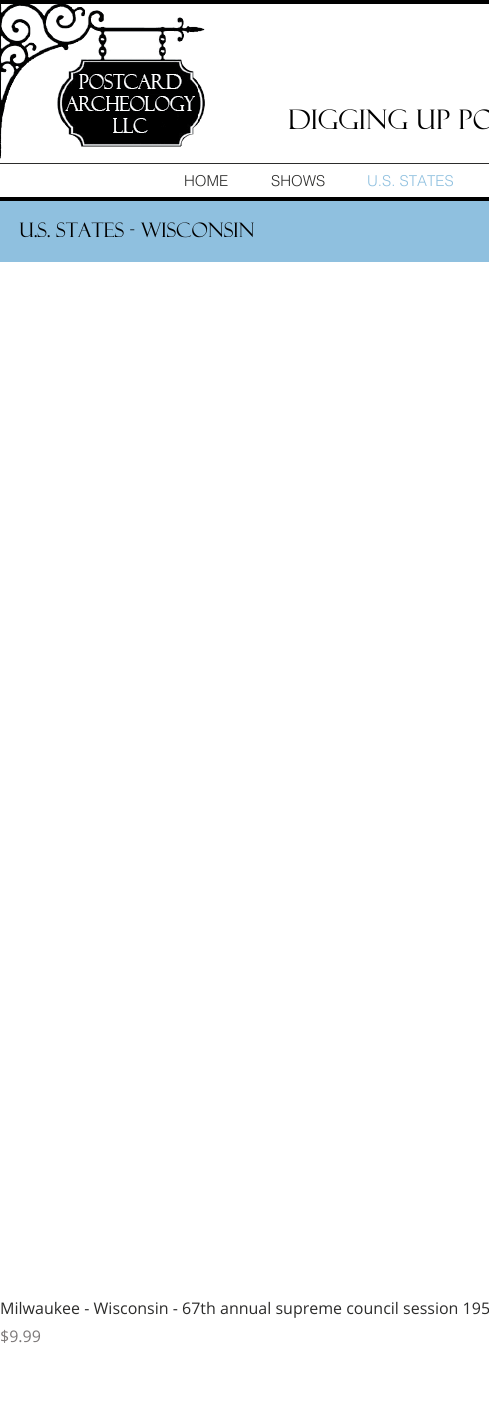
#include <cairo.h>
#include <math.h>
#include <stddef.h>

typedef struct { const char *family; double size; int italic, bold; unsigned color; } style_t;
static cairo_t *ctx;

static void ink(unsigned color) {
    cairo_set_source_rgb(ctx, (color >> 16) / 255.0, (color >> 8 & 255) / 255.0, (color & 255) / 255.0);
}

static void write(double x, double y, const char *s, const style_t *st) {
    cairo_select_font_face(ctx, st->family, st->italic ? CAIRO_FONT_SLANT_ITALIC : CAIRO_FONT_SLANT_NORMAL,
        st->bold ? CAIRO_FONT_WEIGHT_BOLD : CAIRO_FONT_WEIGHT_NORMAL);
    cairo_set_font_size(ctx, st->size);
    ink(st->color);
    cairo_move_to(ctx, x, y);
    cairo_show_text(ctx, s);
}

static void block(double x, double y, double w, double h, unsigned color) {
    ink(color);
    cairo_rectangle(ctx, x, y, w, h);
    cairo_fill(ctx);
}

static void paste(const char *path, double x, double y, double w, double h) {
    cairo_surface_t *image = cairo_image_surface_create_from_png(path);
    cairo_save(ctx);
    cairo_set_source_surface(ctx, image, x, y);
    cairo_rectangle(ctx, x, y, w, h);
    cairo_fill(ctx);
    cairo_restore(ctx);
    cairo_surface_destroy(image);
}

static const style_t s1 = {"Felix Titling", 27, 0, 0, 0x000000};
static const style_t s2 = {"helvetica Light", 15, 0, 0, 0x2c2c2b};
static const style_t s3 = {"helvetica Light", 15, 0, 0, 0x8fc0df};
static const style_t s4 = {"Felix Titling", 20, 0, 0, 0x000000};
static const style_t s5 = {"Open Sans", 16, 0, 0, 0x2c2c2b};
static const style_t s6 = {"Open Sans", 16, 0, 0, 0x7c7878};

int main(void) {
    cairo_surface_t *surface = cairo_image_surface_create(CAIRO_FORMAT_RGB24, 489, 1418);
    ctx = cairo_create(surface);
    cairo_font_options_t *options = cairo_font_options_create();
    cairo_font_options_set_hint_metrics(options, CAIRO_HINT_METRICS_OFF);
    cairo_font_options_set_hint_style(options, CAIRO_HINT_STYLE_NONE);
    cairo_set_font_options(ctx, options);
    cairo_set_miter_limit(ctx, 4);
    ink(0xffffff);
    cairo_paint(ctx);
    block(0, 0, 489, 4, 0x000000);
    paste("pic1.png", 0, 4, 205, 155);
    write(288, 129, "DIGGING UP PO", &s1);
    block(0, 163, 489, 1, 0x2c2c2b);
    write(184, 186, "HOME", &s2);
    write(271, 186, "SHOWS", &s2);
    write(367, 186, "U.S. STATES", &s3);
    block(0, 197, 489, 4, 0x000000);
    block(0, 201, 489, 61, 0x8fc0df);
    write(19, 237, "U.S. States - WISCONSIN", &s4);
    write(0, 1314, "Milwaukee - Wisconsin - 67th annual supreme council session 195", &s5);
    write(0, 1342, "$9.99", &s6);
    cairo_surface_write_to_png(surface, "screenshot.png");
    cairo_font_options_destroy(options);
    cairo_destroy(ctx);
    cairo_surface_destroy(surface);
    return 0;
}
